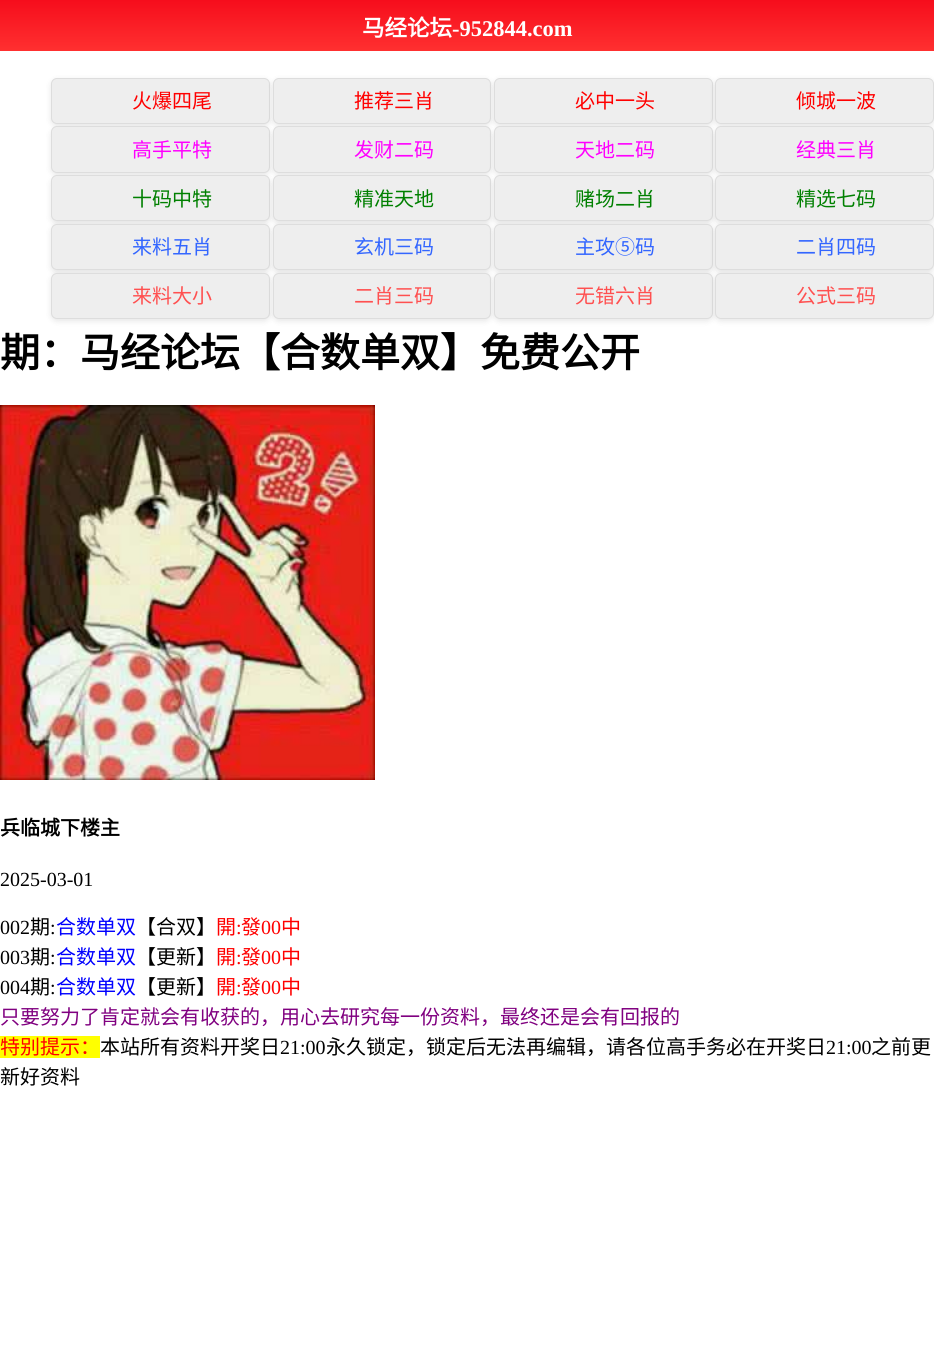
#include <cairo.h>
#include <math.h>
#include <stddef.h>

typedef struct { const char *family; double size; int italic, bold; unsigned color; } style_t;
static cairo_t *ctx;

static void ink(unsigned color) {
    cairo_set_source_rgb(ctx, (color >> 16) / 255.0, (color >> 8 & 255) / 255.0, (color & 255) / 255.0);
}

static void write(double x, double y, const char *s, const style_t *st) {
    cairo_select_font_face(ctx, st->family, st->italic ? CAIRO_FONT_SLANT_ITALIC : CAIRO_FONT_SLANT_NORMAL,
        st->bold ? CAIRO_FONT_WEIGHT_BOLD : CAIRO_FONT_WEIGHT_NORMAL);
    cairo_set_font_size(ctx, st->size);
    ink(st->color);
    cairo_move_to(ctx, x, y);
    cairo_show_text(ctx, s);
}

static void block(double x, double y, double w, double h, unsigned color) {
    ink(color);
    cairo_rectangle(ctx, x, y, w, h);
    cairo_fill(ctx);
}

static void round_path(double x, double y, double w, double h, double r) {
    cairo_new_sub_path(ctx);
    cairo_arc(ctx, x + w - r, y + h - r, r, 0, M_PI / 2);
    cairo_arc(ctx, x + r, y + h - r, r, M_PI / 2, M_PI);
    cairo_arc(ctx, x + r, y + r, r, M_PI, 1.5 * M_PI);
    cairo_arc(ctx, x + w - r, y + r, r, 1.5 * M_PI, 2 * M_PI);
    cairo_close_path(ctx);
}

static void blur_box(double x, double y, double w, double h, double r, double blur, double alpha) {
    cairo_push_group_with_content(ctx, CAIRO_CONTENT_ALPHA);
    cairo_set_operator(ctx, CAIRO_OPERATOR_SOURCE);
    for (int i = 15; i >= -15 && fmin(w, h) + blur * i / 3 > 0; i -= 2) {
        double e = blur * i / 6;
        cairo_set_source_rgba(ctx, 0, 0, 0, alpha * erfc((i - 1) / 8.5) / 2);
        round_path(x - e, y - e, w + 2 * e, h + 2 * e, fmax(0, fmin(r + e + blur * .6, fmin(w, h) / 2 + e)));
        cairo_fill(ctx);
    }
    cairo_pattern_t *soft = cairo_pop_group(ctx);
    cairo_mask(ctx, soft);
    cairo_pattern_destroy(soft);
}

static void paste(const char *path, double x, double y, double w, double h) {
    cairo_surface_t *image = cairo_image_surface_create_from_png(path);
    cairo_save(ctx);
    cairo_set_source_surface(ctx, image, x, y);
    cairo_rectangle(ctx, x, y, w, h);
    cairo_fill(ctx);
    cairo_restore(ctx);
    cairo_surface_destroy(image);
}

static const style_t s1 = {"Noto Sans CJK SC", 22.5, 0, 1, 0xffffff};
static const style_t s2 = {"Liberation Serif", 22.5, 0, 1, 0xffffff};
static const style_t s3 = {"Noto Sans CJK SC", 20, 0, 0, 0xff0000};
static const style_t s4 = {"Noto Sans CJK SC", 20, 0, 0, 0xff00ff};
static const style_t s5 = {"Noto Sans CJK SC", 20, 0, 0, 0x008000};
static const style_t s6 = {"Noto Sans CJK SC", 20, 0, 0, 0x3366ff};
static const style_t s7 = {"Noto Sans CJK SC", 20, 0, 0, 0xff5050};
static const style_t s8 = {"Noto Sans CJK SC", 40, 0, 1, 0x000000};
static const style_t s9 = {"Noto Sans CJK SC", 20, 0, 1, 0x000000};
static const style_t s10 = {"Liberation Serif", 20, 0, 0, 0x000000};
static const style_t s11 = {"Noto Sans CJK SC", 20, 0, 0, 0x000000};
static const style_t s12 = {"Noto Sans CJK SC", 20, 0, 0, 0x0000ff};
static const style_t s13 = {"Liberation Serif", 20, 0, 0, 0xff0000};
static const style_t s14 = {"Noto Sans CJK SC", 20, 0, 0, 0x800080};

int main(void) {
    cairo_surface_t *surface = cairo_image_surface_create(CAIRO_FORMAT_RGB24, 934, 1354);
    ctx = cairo_create(surface);
    cairo_font_options_t *options = cairo_font_options_create();
    cairo_font_options_set_hint_metrics(options, CAIRO_HINT_METRICS_OFF);
    cairo_font_options_set_hint_style(options, CAIRO_HINT_STYLE_NONE);
    cairo_set_font_options(ctx, options);
    cairo_set_miter_limit(ctx, 4);
    cairo_pattern_t *gradient;
    ink(0xffffff);
    cairo_paint(ctx);
    gradient = cairo_pattern_create_linear(468, 51, 468, 0);
    cairo_pattern_add_color_stop_rgba(gradient, 0, 1, 0.188, 0.188, 1);
    cairo_pattern_add_color_stop_rgba(gradient, 1, 0.965, 0.051, 0.11, 1);
    cairo_set_source(ctx, gradient);
    cairo_pattern_destroy(gradient);
    cairo_rectangle(ctx, 0, 0, 934, 51);
    cairo_fill(ctx);
    write(362, 36, "马经论坛", &s1);
    write(452, 36, "-952844.com", &s2);
    ink(0x000000);
    blur_box(51, 80, 219, 46, 6, 3, 0.1);
    ink(0xeeeeee);
    round_path(51.5, 78.5, 218, 45, 5.5);
    cairo_fill_preserve(ctx);
    ink(0xdddddd);
    cairo_set_line_width(ctx, 1);
    cairo_stroke(ctx);
    write(132, 108, "火爆四尾", &s3);
    ink(0x000000);
    blur_box(273, 80, 218, 46, 6, 3, 0.1);
    ink(0xeeeeee);
    round_path(273.5, 78.5, 217, 45, 5.5);
    cairo_fill_preserve(ctx);
    ink(0xdddddd);
    cairo_stroke(ctx);
    write(354, 108, "推荐三肖", &s3);
    ink(0x000000);
    blur_box(494, 80, 219, 46, 6, 3, 0.1);
    ink(0xeeeeee);
    round_path(494.5, 78.5, 218, 45, 5.5);
    cairo_fill_preserve(ctx);
    ink(0xdddddd);
    cairo_stroke(ctx);
    write(575, 108, "必中一头", &s3);
    ink(0x000000);
    blur_box(715, 80, 219, 46, 6, 3, 0.1);
    ink(0xeeeeee);
    round_path(715.5, 78.5, 218, 45, 5.5);
    cairo_fill_preserve(ctx);
    ink(0xdddddd);
    cairo_stroke(ctx);
    write(796, 108, "倾城一波", &s3);
    ink(0x000000);
    blur_box(51, 129, 219, 46, 6, 3, 0.1);
    ink(0xeeeeee);
    round_path(51.5, 126.5, 218, 46, 5.5);
    cairo_fill_preserve(ctx);
    ink(0xdddddd);
    cairo_stroke(ctx);
    write(132, 157, "高手平特", &s4);
    ink(0x000000);
    blur_box(273, 129, 218, 46, 6, 3, 0.1);
    ink(0xeeeeee);
    round_path(273.5, 126.5, 217, 46, 5.5);
    cairo_fill_preserve(ctx);
    ink(0xdddddd);
    cairo_stroke(ctx);
    write(354, 157, "发财二码", &s4);
    ink(0x000000);
    blur_box(494, 129, 219, 46, 6, 3, 0.1);
    ink(0xeeeeee);
    round_path(494.5, 126.5, 218, 46, 5.5);
    cairo_fill_preserve(ctx);
    ink(0xdddddd);
    cairo_stroke(ctx);
    write(575, 157, "天地二码", &s4);
    ink(0x000000);
    blur_box(715, 129, 219, 46, 6, 3, 0.1);
    ink(0xeeeeee);
    round_path(715.5, 126.5, 218, 46, 5.5);
    cairo_fill_preserve(ctx);
    ink(0xdddddd);
    cairo_stroke(ctx);
    write(796, 157, "经典三肖", &s4);
    ink(0x000000);
    blur_box(51, 178, 219, 46, 6, 3, 0.1);
    ink(0xeeeeee);
    round_path(51.5, 175.5, 218, 45, 5.5);
    cairo_fill_preserve(ctx);
    ink(0xdddddd);
    cairo_stroke(ctx);
    write(132, 206, "十码中特", &s5);
    ink(0x000000);
    blur_box(273, 178, 218, 46, 6, 3, 0.1);
    ink(0xeeeeee);
    round_path(273.5, 175.5, 217, 45, 5.5);
    cairo_fill_preserve(ctx);
    ink(0xdddddd);
    cairo_stroke(ctx);
    write(354, 206, "精准天地", &s5);
    ink(0x000000);
    blur_box(494, 178, 219, 46, 6, 3, 0.1);
    ink(0xeeeeee);
    round_path(494.5, 175.5, 218, 45, 5.5);
    cairo_fill_preserve(ctx);
    ink(0xdddddd);
    cairo_stroke(ctx);
    write(575, 206, "赌场二肖", &s5);
    ink(0x000000);
    blur_box(715, 178, 219, 46, 6, 3, 0.1);
    ink(0xeeeeee);
    round_path(715.5, 175.5, 218, 45, 5.5);
    cairo_fill_preserve(ctx);
    ink(0xdddddd);
    cairo_stroke(ctx);
    write(796, 206, "精选七码", &s5);
    ink(0x000000);
    blur_box(51, 226, 219, 47, 6, 3, 0.1);
    ink(0xeeeeee);
    round_path(51.5, 224.5, 218, 45, 5.5);
    cairo_fill_preserve(ctx);
    ink(0xdddddd);
    cairo_stroke(ctx);
    write(132, 254, "来料五肖", &s6);
    ink(0x000000);
    blur_box(273, 226, 218, 47, 6, 3, 0.1);
    ink(0xeeeeee);
    round_path(273.5, 224.5, 217, 45, 5.5);
    cairo_fill_preserve(ctx);
    ink(0xdddddd);
    cairo_stroke(ctx);
    write(354, 254, "玄机三码", &s6);
    ink(0x000000);
    blur_box(494, 226, 219, 47, 6, 3, 0.1);
    ink(0xeeeeee);
    round_path(494.5, 224.5, 218, 45, 5.5);
    cairo_fill_preserve(ctx);
    ink(0xdddddd);
    cairo_stroke(ctx);
    write(575, 254, "主攻⑤码", &s6);
    ink(0x000000);
    blur_box(715, 226, 219, 47, 6, 3, 0.1);
    ink(0xeeeeee);
    round_path(715.5, 224.5, 218, 45, 5.5);
    cairo_fill_preserve(ctx);
    ink(0xdddddd);
    cairo_stroke(ctx);
    write(796, 254, "二肖四码", &s6);
    ink(0x000000);
    blur_box(51, 275, 219, 46, 6, 3, 0.1);
    ink(0xeeeeee);
    round_path(51.5, 273.5, 218, 45, 5.5);
    cairo_fill_preserve(ctx);
    ink(0xdddddd);
    cairo_stroke(ctx);
    write(132, 303, "来料大小", &s7);
    ink(0x000000);
    blur_box(273, 275, 218, 46, 6, 3, 0.1);
    ink(0xeeeeee);
    round_path(273.5, 273.5, 217, 45, 5.5);
    cairo_fill_preserve(ctx);
    ink(0xdddddd);
    cairo_stroke(ctx);
    write(354, 303, "二肖三码", &s7);
    ink(0x000000);
    blur_box(494, 275, 219, 46, 6, 3, 0.1);
    ink(0xeeeeee);
    round_path(494.5, 273.5, 218, 45, 5.5);
    cairo_fill_preserve(ctx);
    ink(0xdddddd);
    cairo_stroke(ctx);
    write(575, 303, "无错六肖", &s7);
    ink(0x000000);
    blur_box(715, 275, 219, 46, 6, 3, 0.1);
    ink(0xeeeeee);
    round_path(715.5, 273.5, 218, 45, 5.5);
    cairo_fill_preserve(ctx);
    ink(0xdddddd);
    cairo_stroke(ctx);
    write(796, 303, "公式三码", &s7);
    write(0, 367, "期：马经论坛【合数单双】免费公开", &s8);
    paste("pic1.png", 0, 405, 375, 375);
    write(0, 835, "兵临城下楼主", &s9);
    write(0, 886, "2025-03-01", &s10);
    write(0, 934, "002", &s10);
    write(30, 934, "期", &s11);
    write(50, 934, ":", &s10);
    write(56, 934, "合数单双", &s12);
    write(136, 934, "【合双】", &s11);
    write(216, 934, "開", &s3);
    write(236, 934, ":", &s13);
    write(241, 934, "發", &s3);
    write(261, 934, "00", &s13);
    write(281, 934, "中", &s3);
    write(0, 964, "003", &s10);
    write(30, 964, "期", &s11);
    write(50, 964, ":", &s10);
    write(56, 964, "合数单双", &s12);
    write(136, 964, "【更新】", &s11);
    write(216, 964, "開", &s3);
    write(236, 964, ":", &s13);
    write(241, 964, "發", &s3);
    write(261, 964, "00", &s13);
    write(281, 964, "中", &s3);
    write(0, 994, "004", &s10);
    write(30, 994, "期", &s11);
    write(50, 994, ":", &s10);
    write(56, 994, "合数单双", &s12);
    write(136, 994, "【更新】", &s11);
    write(216, 994, "開", &s3);
    write(236, 994, ":", &s13);
    write(241, 994, "發", &s3);
    write(261, 994, "00", &s13);
    write(281, 994, "中", &s3);
    write(0, 1024, "只要努力了肯定就会有收获的，用心去研究每一份资料，最终还是会有回报的", &s14);
    block(0, 1036, 100, 22, 0xffff00);
    write(0, 1054, "特别提示：", &s3);
    write(100, 1054, "本站所有资料开奖日", &s11);
    write(280, 1054, "21:00", &s10);
    write(326, 1054, "永久锁定，锁定后无法再编辑，请各位高手务必在开奖日", &s11);
    write(826, 1054, "21:00", &s10);
    write(871, 1054, "之前更", &s11);
    write(0, 1084, "新好资料", &s11);
    cairo_surface_write_to_png(surface, "screenshot.png");
    cairo_font_options_destroy(options);
    cairo_destroy(ctx);
    cairo_surface_destroy(surface);
    return 0;
}
